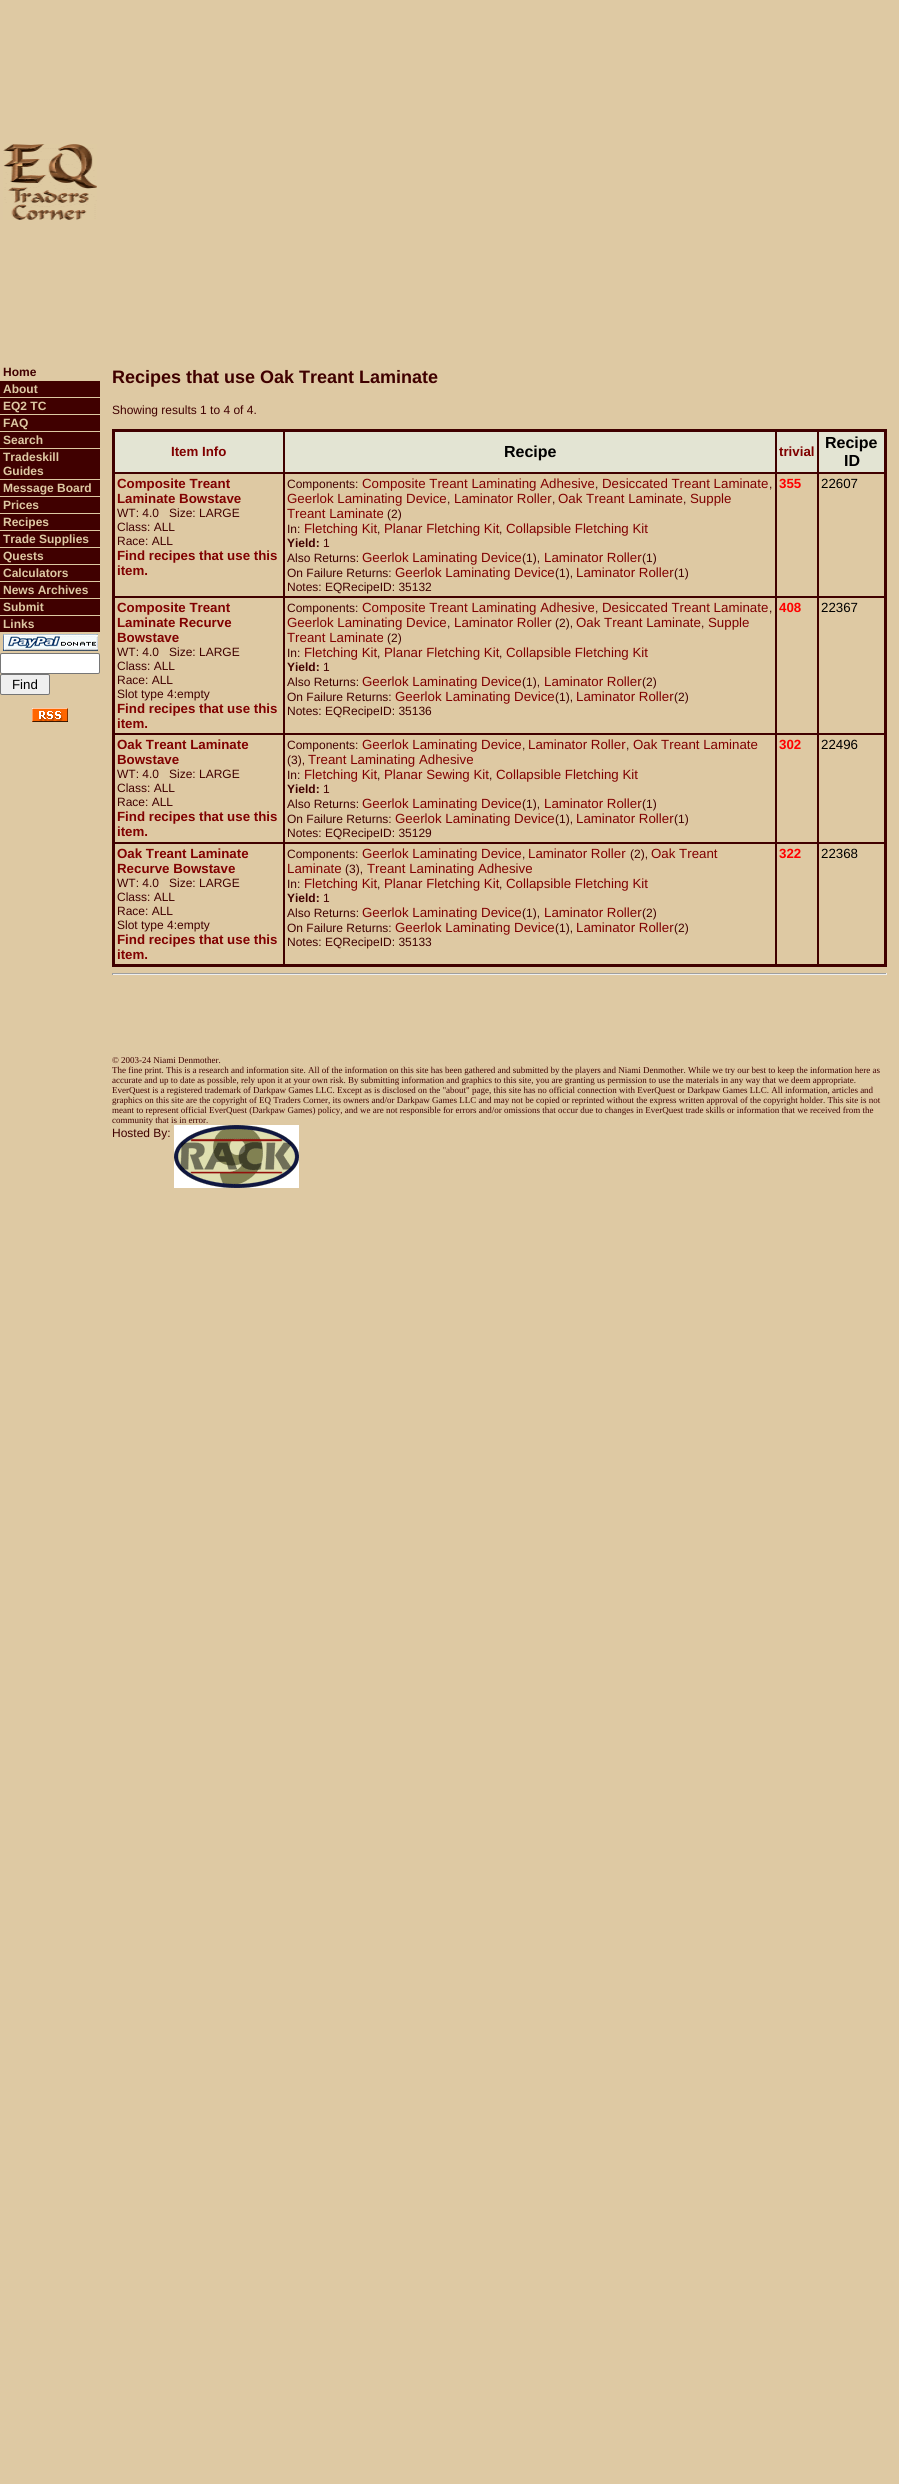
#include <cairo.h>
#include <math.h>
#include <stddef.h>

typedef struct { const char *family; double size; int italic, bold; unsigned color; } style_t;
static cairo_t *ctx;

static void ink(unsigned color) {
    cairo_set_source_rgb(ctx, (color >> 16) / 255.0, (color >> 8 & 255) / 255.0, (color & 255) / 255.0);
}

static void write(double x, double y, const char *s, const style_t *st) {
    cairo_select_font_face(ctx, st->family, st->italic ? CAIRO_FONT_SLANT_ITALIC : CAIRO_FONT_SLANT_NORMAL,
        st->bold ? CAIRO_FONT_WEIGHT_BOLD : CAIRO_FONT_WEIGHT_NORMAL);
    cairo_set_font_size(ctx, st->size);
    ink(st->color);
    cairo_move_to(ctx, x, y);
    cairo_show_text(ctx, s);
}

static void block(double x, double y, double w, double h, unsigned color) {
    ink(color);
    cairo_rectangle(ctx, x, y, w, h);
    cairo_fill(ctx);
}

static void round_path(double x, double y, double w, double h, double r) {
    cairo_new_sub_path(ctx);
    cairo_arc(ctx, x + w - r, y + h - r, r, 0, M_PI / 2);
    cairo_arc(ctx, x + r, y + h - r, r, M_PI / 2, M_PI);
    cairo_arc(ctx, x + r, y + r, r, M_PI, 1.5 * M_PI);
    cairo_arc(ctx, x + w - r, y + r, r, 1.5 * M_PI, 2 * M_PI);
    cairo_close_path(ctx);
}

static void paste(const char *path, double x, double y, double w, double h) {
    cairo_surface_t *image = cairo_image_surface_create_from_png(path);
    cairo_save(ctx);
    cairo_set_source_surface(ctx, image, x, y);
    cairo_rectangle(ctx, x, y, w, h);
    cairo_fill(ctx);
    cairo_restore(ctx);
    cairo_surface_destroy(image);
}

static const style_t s1 = {"Liberation Sans", 12, 0, 1, 0x400000};
static const style_t s2 = {"Liberation Sans", 12, 0, 1, 0xdec9a3};
static const style_t s3 = {"Liberation Sans", 13.3, 0, 0, 0x000000};
static const style_t s4 = {"Liberation Sans", 18, 0, 1, 0x400000};
static const style_t s5 = {"Liberation Sans", 12, 0, 0, 0x400000};
static const style_t s6 = {"Liberation Sans", 13.3, 0, 1, 0x800000};
static const style_t s7 = {"Liberation Sans", 16, 0, 1, 0x000000};
static const style_t s8 = {"Liberation Sans", 13.3, 0, 0, 0x800000};
static const style_t s9 = {"Liberation Sans", 13.3, 0, 1, 0xff0000};
static const style_t s10 = {"Liberation Serif", 9, 0, 0, 0x400000};

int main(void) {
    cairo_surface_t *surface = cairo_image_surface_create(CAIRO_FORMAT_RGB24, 899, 2484);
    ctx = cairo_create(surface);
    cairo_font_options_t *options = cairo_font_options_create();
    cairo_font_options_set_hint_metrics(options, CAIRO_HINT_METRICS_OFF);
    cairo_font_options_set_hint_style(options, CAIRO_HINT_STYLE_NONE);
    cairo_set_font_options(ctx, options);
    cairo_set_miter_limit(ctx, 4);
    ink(0xdec9a3);
    cairo_paint(ctx);
    paste("pic1.png", 3, 144, 94, 76);
    write(3, 376, "Home", &s1);
    block(0, 381, 100, 16, 0x400000);
    write(3, 393, "About", &s2);
    block(0, 398, 100, 16, 0x400000);
    write(3, 410, "EQ2 TC", &s2);
    block(0, 415, 100, 16, 0x400000);
    write(3, 427, "FAQ", &s2);
    block(0, 432, 100, 16, 0x400000);
    write(3, 444, "Search", &s2);
    block(0, 449, 100, 30, 0x400000);
    write(3, 461, "Tradeskill", &s2);
    write(3, 475, "Guides", &s2);
    block(0, 480, 100, 16, 0x400000);
    write(3, 492, "Message Board", &s2);
    block(0, 497, 100, 16, 0x400000);
    write(3, 509, "Prices", &s2);
    block(0, 514, 100, 16, 0x400000);
    write(3, 526, "Recipes", &s2);
    block(0, 531, 100, 16, 0x400000);
    write(3, 543, "Trade Supplies", &s2);
    block(0, 548, 100, 16, 0x400000);
    write(3, 560, "Quests", &s2);
    block(0, 565, 100, 16, 0x400000);
    write(3, 577, "Calculators", &s2);
    block(0, 582, 100, 16, 0x400000);
    write(3, 594, "News Archives", &s2);
    block(0, 599, 100, 16, 0x400000);
    write(3, 611, "Submit", &s2);
    block(0, 616, 100, 16, 0x400000);
    write(3, 628, "Links", &s2);
    paste("pic2.png", 3, 634, 95, 17);
    ink(0xffffff);
    round_path(0.5, 653.5, 99, 20, 1.5);
    cairo_fill_preserve(ctx);
    ink(0x767676);
    cairo_set_line_width(ctx, 1);
    cairo_stroke(ctx);
    ink(0xefefef);
    round_path(0.5, 674.5, 49, 20, 1.5);
    cairo_fill_preserve(ctx);
    ink(0x767676);
    cairo_stroke(ctx);
    write(12, 689, "Find", &s3);
    paste("pic3.png", 32, 708, 36, 14);
    write(112, 383, "Recipes that use Oak Treant Laminate", &s4);
    write(112, 414, "Showing results 1 to 4 of 4.", &s5);
    cairo_rectangle(ctx, 113, 430, 773, 536);
    cairo_set_line_width(ctx, 2);
    cairo_stroke(ctx);
    block(115, 432, 769, 40, 0xe3e4d3);
    cairo_rectangle(ctx, 114.5, 431.5, 169, 41);
    ink(0x400000);
    cairo_set_line_width(ctx, 1);
    cairo_stroke(ctx);
    write(171, 456, "Item Info", &s6);
    cairo_rectangle(ctx, 284.5, 431.5, 491, 41);
    ink(0x400000);
    cairo_stroke(ctx);
    write(504, 457, "Recipe", &s7);
    cairo_rectangle(ctx, 776.5, 431.5, 41, 41);
    ink(0x400000);
    cairo_stroke(ctx);
    write(779, 456, "trivial", &s6);
    cairo_rectangle(ctx, 818.5, 431.5, 66, 41);
    ink(0x400000);
    cairo_stroke(ctx);
    write(825, 448, "Recipe", &s7);
    write(844, 466, "ID", &s7);
    cairo_rectangle(ctx, 114.5, 473.5, 169, 123);
    ink(0x400000);
    cairo_stroke(ctx);
    write(117, 488, "Composite Treant", &s6);
    write(117, 503, "Laminate Bowstave", &s6);
    write(117, 517, "WT: 4.0   Size: LARGE", &s5);
    write(117, 531, "Class: ALL", &s5);
    write(117, 545, "Race: ALL", &s5);
    write(117, 560, "Find recipes that use this", &s6);
    write(117, 575, "item.", &s6);
    cairo_rectangle(ctx, 284.5, 473.5, 491, 123);
    ink(0x400000);
    cairo_stroke(ctx);
    write(287, 488, "Components:", &s5);
    write(362, 488, "Composite Treant Laminating Adhesive", &s8);
    write(595, 488, ",", &s5);
    write(602, 488, "Desiccated Treant Laminate", &s8);
    write(769, 488, ",", &s5);
    write(287, 503, "Geerlok Laminating Device", &s8);
    write(447, 503, ",", &s5);
    write(454, 503, "Laminator Roller", &s8);
    write(552, 503, ",", &s5);
    write(558, 503, "Oak Treant Laminate", &s8);
    write(683, 503, ",", &s5);
    write(690, 503, "Supple", &s8);
    write(287, 518, "Treant Laminate", &s8);
    write(387, 518, "(2)", &s5);
    write(287, 533, "In:", &s5);
    write(304, 533, "Fletching Kit", &s8);
    write(377, 533, ",", &s5);
    write(384, 533, "Planar Fletching Kit", &s8);
    write(499, 533, ",", &s5);
    write(506, 533, "Collapsible Fletching Kit", &s8);
    write(287, 547, "Yield:", &s1);
    write(323, 547, "1", &s5);
    write(287, 562, "Also Returns:", &s5);
    write(362, 562, "Geerlok Laminating Device", &s8);
    write(522, 562, "(1),", &s5);
    write(544, 562, "Laminator Roller", &s8);
    write(642, 562, "(1)", &s5);
    write(287, 577, "On Failure Returns:", &s5);
    write(395, 577, "Geerlok Laminating Device", &s8);
    write(555, 577, "(1),", &s5);
    write(576, 577, "Laminator Roller", &s8);
    write(674, 577, "(1)", &s5);
    write(287, 591, "Notes: EQRecipeID: 35132", &s5);
    cairo_rectangle(ctx, 776.5, 473.5, 41, 123);
    cairo_stroke(ctx);
    write(779, 488, "355", &s9);
    cairo_rectangle(ctx, 818.5, 473.5, 66, 123);
    ink(0x400000);
    cairo_stroke(ctx);
    write(821, 488, "22607", &s3);
    cairo_rectangle(ctx, 114.5, 597.5, 169, 136);
    ink(0x400000);
    cairo_stroke(ctx);
    write(117, 612, "Composite Treant", &s6);
    write(117, 627, "Laminate Recurve", &s6);
    write(117, 642, "Bowstave", &s6);
    write(117, 656, "WT: 4.0   Size: LARGE", &s5);
    write(117, 670, "Class: ALL", &s5);
    write(117, 684, "Race: ALL", &s5);
    write(117, 698, "Slot type 4:empty", &s5);
    write(117, 713, "Find recipes that use this", &s6);
    write(117, 728, "item.", &s6);
    cairo_rectangle(ctx, 284.5, 597.5, 491, 136);
    ink(0x400000);
    cairo_stroke(ctx);
    write(287, 612, "Components:", &s5);
    write(362, 612, "Composite Treant Laminating Adhesive", &s8);
    write(595, 612, ",", &s5);
    write(602, 612, "Desiccated Treant Laminate", &s8);
    write(769, 612, ",", &s5);
    write(287, 627, "Geerlok Laminating Device", &s8);
    write(447, 627, ",", &s5);
    write(454, 627, "Laminator Roller", &s8);
    write(555, 627, "(2),", &s5);
    write(576, 627, "Oak Treant Laminate", &s8);
    write(701, 627, ",", &s5);
    write(708, 627, "Supple", &s8);
    write(287, 642, "Treant Laminate", &s8);
    write(387, 642, "(2)", &s5);
    write(287, 657, "In:", &s5);
    write(304, 657, "Fletching Kit", &s8);
    write(377, 657, ",", &s5);
    write(384, 657, "Planar Fletching Kit", &s8);
    write(499, 657, ",", &s5);
    write(506, 657, "Collapsible Fletching Kit", &s8);
    write(287, 671, "Yield:", &s1);
    write(323, 671, "1", &s5);
    write(287, 686, "Also Returns:", &s5);
    write(362, 686, "Geerlok Laminating Device", &s8);
    write(522, 686, "(1),", &s5);
    write(544, 686, "Laminator Roller", &s8);
    write(642, 686, "(2)", &s5);
    write(287, 701, "On Failure Returns:", &s5);
    write(395, 701, "Geerlok Laminating Device", &s8);
    write(555, 701, "(1),", &s5);
    write(576, 701, "Laminator Roller", &s8);
    write(674, 701, "(2)", &s5);
    write(287, 715, "Notes: EQRecipeID: 35136", &s5);
    cairo_rectangle(ctx, 776.5, 597.5, 41, 136);
    cairo_stroke(ctx);
    write(779, 612, "408", &s9);
    cairo_rectangle(ctx, 818.5, 597.5, 66, 136);
    ink(0x400000);
    cairo_stroke(ctx);
    write(821, 612, "22367", &s3);
    cairo_rectangle(ctx, 114.5, 734.5, 169, 108);
    ink(0x400000);
    cairo_stroke(ctx);
    write(117, 749, "Oak Treant Laminate", &s6);
    write(117, 764, "Bowstave", &s6);
    write(117, 778, "WT: 4.0   Size: LARGE", &s5);
    write(117, 792, "Class: ALL", &s5);
    write(117, 806, "Race: ALL", &s5);
    write(117, 821, "Find recipes that use this", &s6);
    write(117, 836, "item.", &s6);
    cairo_rectangle(ctx, 284.5, 734.5, 491, 108);
    ink(0x400000);
    cairo_stroke(ctx);
    write(287, 749, "Components:", &s5);
    write(362, 749, "Geerlok Laminating Device", &s8);
    write(522, 749, ",", &s5);
    write(528, 749, "Laminator Roller", &s8);
    write(626, 749, ",", &s5);
    write(633, 749, "Oak Treant Laminate", &s8);
    write(287, 764, "(3),", &s5);
    write(308, 764, "Treant Laminating Adhesive", &s8);
    write(287, 779, "In:", &s5);
    write(304, 779, "Fletching Kit", &s8);
    write(377, 779, ",", &s5);
    write(384, 779, "Planar Sewing Kit", &s8);
    write(489, 779, ",", &s5);
    write(496, 779, "Collapsible Fletching Kit", &s8);
    write(287, 793, "Yield:", &s1);
    write(323, 793, "1", &s5);
    write(287, 808, "Also Returns:", &s5);
    write(362, 808, "Geerlok Laminating Device", &s8);
    write(522, 808, "(1),", &s5);
    write(544, 808, "Laminator Roller", &s8);
    write(642, 808, "(1)", &s5);
    write(287, 823, "On Failure Returns:", &s5);
    write(395, 823, "Geerlok Laminating Device", &s8);
    write(555, 823, "(1),", &s5);
    write(576, 823, "Laminator Roller", &s8);
    write(674, 823, "(1)", &s5);
    write(287, 837, "Notes: EQRecipeID: 35129", &s5);
    cairo_rectangle(ctx, 776.5, 734.5, 41, 108);
    cairo_stroke(ctx);
    write(779, 749, "302", &s9);
    cairo_rectangle(ctx, 818.5, 734.5, 66, 108);
    ink(0x400000);
    cairo_stroke(ctx);
    write(821, 749, "22496", &s3);
    cairo_rectangle(ctx, 114.5, 843.5, 169, 121);
    ink(0x400000);
    cairo_stroke(ctx);
    write(117, 858, "Oak Treant Laminate", &s6);
    write(117, 873, "Recurve Bowstave", &s6);
    write(117, 887, "WT: 4.0   Size: LARGE", &s5);
    write(117, 901, "Class: ALL", &s5);
    write(117, 915, "Race: ALL", &s5);
    write(117, 929, "Slot type 4:empty", &s5);
    write(117, 944, "Find recipes that use this", &s6);
    write(117, 959, "item.", &s6);
    cairo_rectangle(ctx, 284.5, 843.5, 491, 121);
    ink(0x400000);
    cairo_stroke(ctx);
    write(287, 858, "Components:", &s5);
    write(362, 858, "Geerlok Laminating Device", &s8);
    write(522, 858, ",", &s5);
    write(528, 858, "Laminator Roller", &s8);
    write(630, 858, "(2),", &s5);
    write(651, 858, "Oak Treant", &s8);
    write(287, 873, "Laminate", &s8);
    write(345, 873, "(3),", &s5);
    write(367, 873, "Treant Laminating Adhesive", &s8);
    write(287, 888, "In:", &s5);
    write(304, 888, "Fletching Kit", &s8);
    write(377, 888, ",", &s5);
    write(384, 888, "Planar Fletching Kit", &s8);
    write(499, 888, ",", &s5);
    write(506, 888, "Collapsible Fletching Kit", &s8);
    write(287, 902, "Yield:", &s1);
    write(323, 902, "1", &s5);
    write(287, 917, "Also Returns:", &s5);
    write(362, 917, "Geerlok Laminating Device", &s8);
    write(522, 917, "(1),", &s5);
    write(544, 917, "Laminator Roller", &s8);
    write(642, 917, "(2)", &s5);
    write(287, 932, "On Failure Returns:", &s5);
    write(395, 932, "Geerlok Laminating Device", &s8);
    write(555, 932, "(1),", &s5);
    write(576, 932, "Laminator Roller", &s8);
    write(674, 932, "(2)", &s5);
    write(287, 946, "Notes: EQRecipeID: 35133", &s5);
    cairo_rectangle(ctx, 776.5, 843.5, 41, 121);
    cairo_stroke(ctx);
    write(779, 858, "322", &s9);
    cairo_rectangle(ctx, 818.5, 843.5, 66, 121);
    ink(0x400000);
    cairo_stroke(ctx);
    write(821, 858, "22368", &s3);
    block(112, 973, 775, 1, 0x9f9f9f);
    block(886, 973, 1, 2, 0xeeeeee);
    block(112, 974, 775, 1, 0xeeeeee);
    block(112, 973, 1, 2, 0x9f9f9f);
    write(112, 1063, "© 2003-24 Niami Denmother.", &s10);
    write(112, 1073, "The fine print. This is a research and information site. All of the information on this site has been gathered and submitted by the players and Niami Denmother. While we try our best to keep the information here as", &s10);
    write(112, 1083, "accurate and up to date as possible, rely upon it at your own risk. By submitting information and graphics to this site, you are granting us permission to use the materials in any way that we deem appropriate.", &s10);
    write(112, 1093, "EverQuest is a registered trademark of Darkpaw Games LLC. Except as is disclosed on the \"about\" page, this site has no official connection with EverQuest or Darkpaw Games LLC. All information, articles and", &s10);
    write(112, 1103, "graphics on this site are the copyright of EQ Traders Corner, its owners and/or Darkpaw Games LLC and may not be copied or reprinted without the express written approval of the copyright holder. This site is not", &s10);
    write(112, 1113, "meant to represent official EverQuest (Darkpaw Games) policy, and we are not responsible for errors and/or omissions that occur due to changes in EverQuest trade skills or information that we received from the", &s10);
    write(112, 1123, "community that is in error.", &s10);
    write(112, 1137, "Hosted By:", &s5);
    paste("pic4.png", 174, 1125, 125, 63);
    cairo_surface_write_to_png(surface, "screenshot.png");
    cairo_font_options_destroy(options);
    cairo_destroy(ctx);
    cairo_surface_destroy(surface);
    return 0;
}
